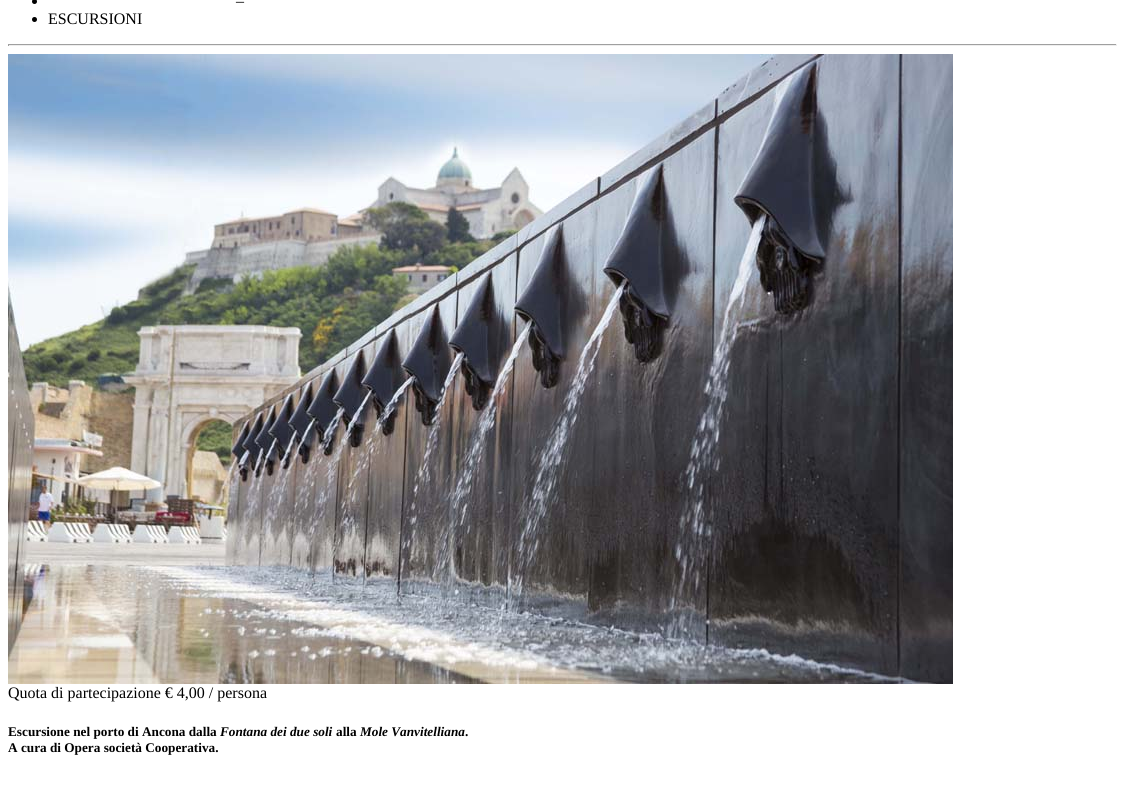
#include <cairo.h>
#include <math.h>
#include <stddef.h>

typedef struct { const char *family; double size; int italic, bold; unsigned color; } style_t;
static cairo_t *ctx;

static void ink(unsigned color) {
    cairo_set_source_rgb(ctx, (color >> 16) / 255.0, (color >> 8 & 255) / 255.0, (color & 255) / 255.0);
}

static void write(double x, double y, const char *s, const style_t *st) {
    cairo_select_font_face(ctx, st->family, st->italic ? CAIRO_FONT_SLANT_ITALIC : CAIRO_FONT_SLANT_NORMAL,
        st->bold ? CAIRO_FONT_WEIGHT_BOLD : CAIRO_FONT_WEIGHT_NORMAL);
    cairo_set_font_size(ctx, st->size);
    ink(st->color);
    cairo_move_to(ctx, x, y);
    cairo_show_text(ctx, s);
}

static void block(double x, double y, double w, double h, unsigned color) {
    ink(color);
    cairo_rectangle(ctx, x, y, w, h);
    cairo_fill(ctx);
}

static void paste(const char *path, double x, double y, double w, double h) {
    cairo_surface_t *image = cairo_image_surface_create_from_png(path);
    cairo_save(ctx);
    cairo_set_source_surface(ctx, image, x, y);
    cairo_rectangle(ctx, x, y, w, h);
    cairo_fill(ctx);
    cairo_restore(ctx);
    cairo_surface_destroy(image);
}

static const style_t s1 = {"Liberation Serif", 16, 0, 0, 0x000000};
static const style_t s2 = {"Liberation Serif", 13.25, 0, 1, 0x000000};
static const style_t s3 = {"Liberation Serif", 13.25, 1, 1, 0x000000};

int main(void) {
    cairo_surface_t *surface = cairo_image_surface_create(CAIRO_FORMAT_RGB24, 1125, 788);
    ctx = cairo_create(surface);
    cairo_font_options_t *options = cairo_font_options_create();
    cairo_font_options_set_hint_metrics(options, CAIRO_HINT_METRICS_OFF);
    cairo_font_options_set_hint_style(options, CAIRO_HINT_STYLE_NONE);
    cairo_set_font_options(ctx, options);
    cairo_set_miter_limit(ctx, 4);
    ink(0xffffff);
    cairo_paint(ctx);
    ink(0x000000);
    cairo_arc(ctx, 34.5, 1.5, 2.5, 0, 2 * M_PI);
    cairo_fill(ctx);
    write(236, 6, "–", &s1);
    cairo_new_path(ctx);
    cairo_arc(ctx, 34.5, 19.5, 2.5, 0, 2 * M_PI);
    cairo_fill(ctx);
    write(48, 24, "ESCURSIONI", &s1);
    block(8, 44, 1109, 1, 0x9f9f9f);
    block(1116, 44, 1, 2, 0xeeeeee);
    block(8, 45, 1109, 1, 0xeeeeee);
    block(8, 44, 1, 2, 0x9f9f9f);
    paste("pic1.png", 8, 54, 945, 630);
    write(8, 698, "Quota di partecipazione € 4,00 / persona", &s1);
    write(8, 736, "Escursione nel porto di Ancona dalla", &s2);
    write(220, 736, "Fontana dei due soli", &s3);
    write(336, 736, "alla", &s2);
    write(360, 736, "Mole Vanvitelliana", &s3);
    write(465, 736, ".", &s2);
    write(8, 752, "A cura di Opera società Cooperativa.", &s2);
    cairo_surface_write_to_png(surface, "screenshot.png");
    cairo_font_options_destroy(options);
    cairo_destroy(ctx);
    cairo_surface_destroy(surface);
    return 0;
}
